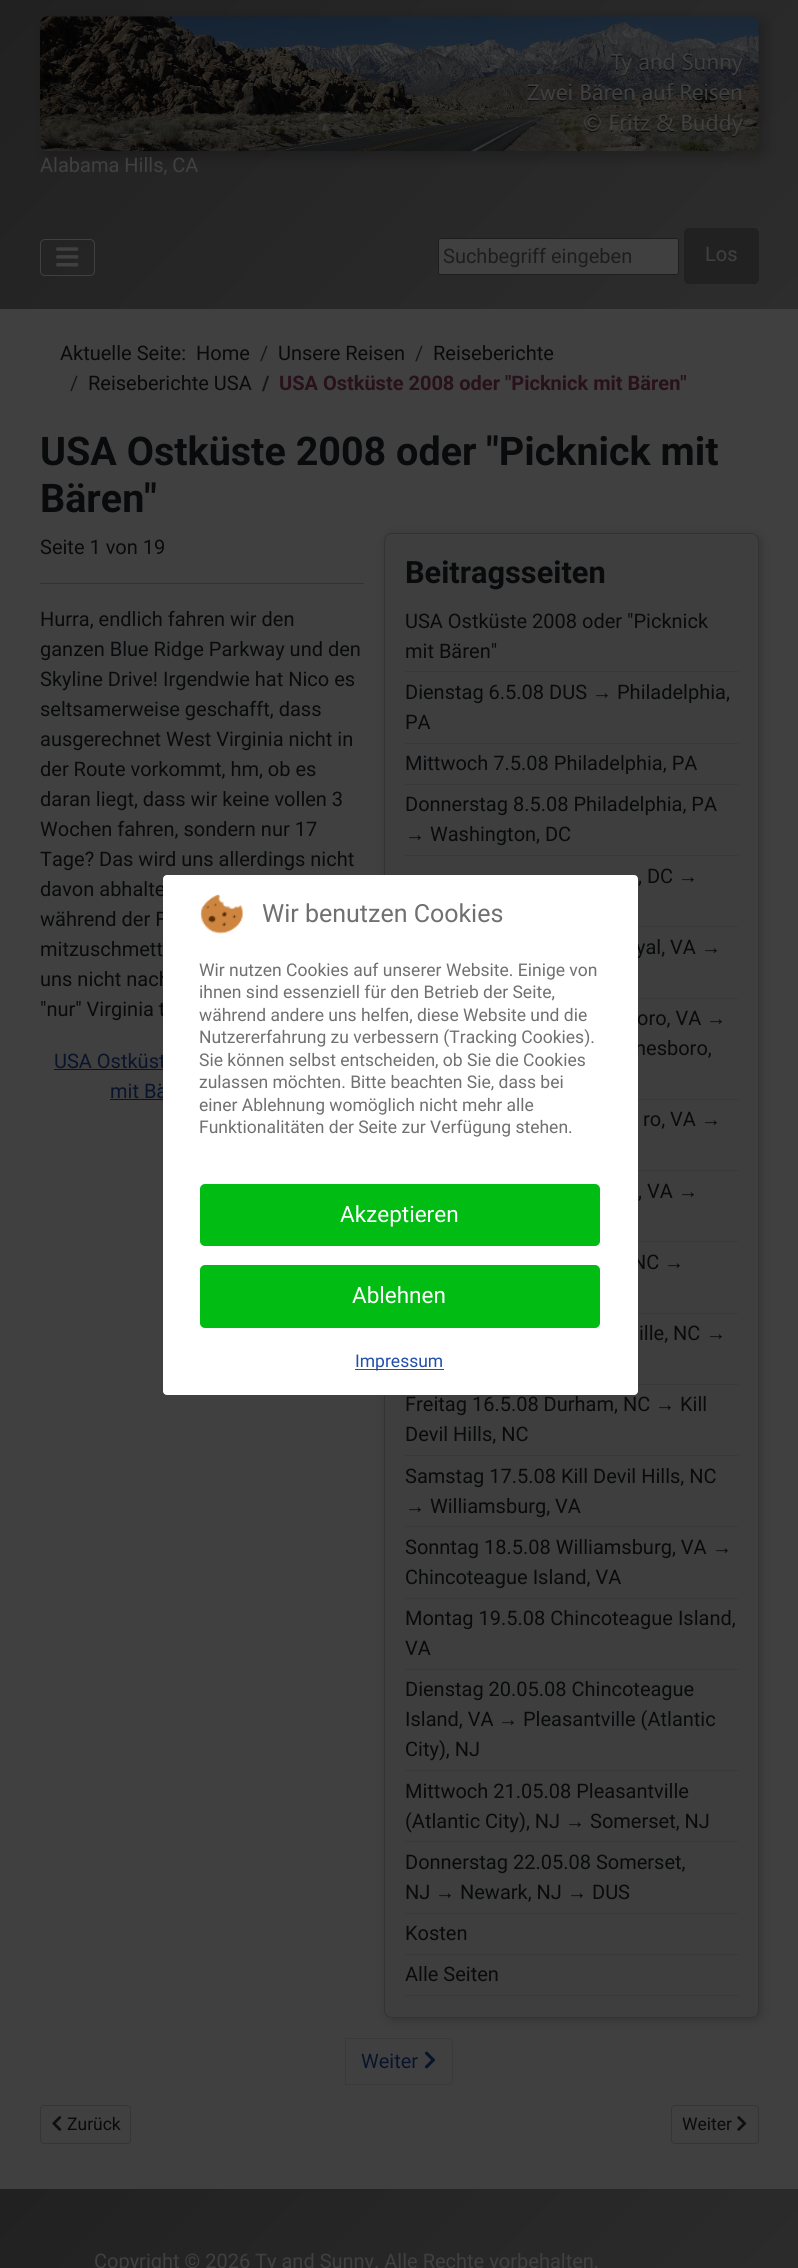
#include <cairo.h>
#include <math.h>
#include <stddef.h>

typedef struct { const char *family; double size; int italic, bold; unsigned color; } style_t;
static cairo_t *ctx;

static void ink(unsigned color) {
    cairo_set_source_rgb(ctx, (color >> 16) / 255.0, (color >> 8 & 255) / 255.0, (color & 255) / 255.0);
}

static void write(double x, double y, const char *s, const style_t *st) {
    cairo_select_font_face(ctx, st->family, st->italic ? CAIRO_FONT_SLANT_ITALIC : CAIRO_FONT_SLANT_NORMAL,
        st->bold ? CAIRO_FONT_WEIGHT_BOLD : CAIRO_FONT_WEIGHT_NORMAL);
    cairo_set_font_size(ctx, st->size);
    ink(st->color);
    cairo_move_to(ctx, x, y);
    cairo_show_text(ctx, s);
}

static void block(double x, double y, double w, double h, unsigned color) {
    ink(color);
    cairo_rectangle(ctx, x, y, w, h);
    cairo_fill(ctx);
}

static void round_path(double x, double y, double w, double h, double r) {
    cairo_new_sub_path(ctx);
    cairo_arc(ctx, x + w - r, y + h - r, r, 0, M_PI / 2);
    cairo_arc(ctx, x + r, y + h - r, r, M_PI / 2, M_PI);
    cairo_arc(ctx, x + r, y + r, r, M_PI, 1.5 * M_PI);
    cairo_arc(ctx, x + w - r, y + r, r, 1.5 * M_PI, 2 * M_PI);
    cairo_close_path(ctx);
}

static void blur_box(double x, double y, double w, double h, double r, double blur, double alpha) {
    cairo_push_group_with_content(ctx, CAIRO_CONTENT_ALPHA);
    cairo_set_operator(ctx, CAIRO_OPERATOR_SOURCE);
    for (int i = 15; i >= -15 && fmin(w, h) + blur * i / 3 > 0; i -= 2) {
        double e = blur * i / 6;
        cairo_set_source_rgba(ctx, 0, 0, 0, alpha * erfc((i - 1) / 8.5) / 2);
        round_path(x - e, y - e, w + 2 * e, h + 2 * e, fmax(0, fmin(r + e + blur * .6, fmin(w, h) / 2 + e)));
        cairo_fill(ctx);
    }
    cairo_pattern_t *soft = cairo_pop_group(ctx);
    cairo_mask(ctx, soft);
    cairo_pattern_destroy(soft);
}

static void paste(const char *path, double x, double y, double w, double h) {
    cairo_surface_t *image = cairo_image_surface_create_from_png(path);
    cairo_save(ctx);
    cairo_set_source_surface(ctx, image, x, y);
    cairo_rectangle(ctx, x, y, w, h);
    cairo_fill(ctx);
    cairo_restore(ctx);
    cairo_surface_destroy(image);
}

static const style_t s1 = {"Roboto", 20, 0, 0, 0x404040};
static const style_t s2 = {"Roboto", 20, 0, 0, 0x1d1d1d};
static const style_t s3 = {"Roboto", 20, 0, 0, 0x090a0b};
static const style_t s4 = {"Roboto", 20, 0, 0, 0x161717};
static const style_t s5 = {"Roboto", 20, 0, 1, 0x161717};
static const style_t s6 = {"Roboto", 20, 0, 1, 0x28111b};
static const style_t s7 = {"Roboto", 39.5, 0, 1, 0x090a0b};
static const style_t s8 = {"Roboto", 20, 0, 0, 0x09142b};
static const style_t s9 = {"Roboto", 30.75, 0, 1, 0x090a0b};
static const style_t s10 = {"Liberation Sans", 20, 0, 0, 0x090a0b};
static const style_t s11 = {"Roboto", 17.5, 0, 0, 0x090a0b};
static const style_t s12 = {"Roboto", 25, 0, 0, 0x707070};
static const style_t s13 = {"Roboto", 17.5, 0, 0, 0x707070};
static const style_t s14 = {"Roboto", 22.5, 0, 0, 0xffffff};
static const style_t s15 = {"Roboto", 17.5, 0, 0, 0x224faa};

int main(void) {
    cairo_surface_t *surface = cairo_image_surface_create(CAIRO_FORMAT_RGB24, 798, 2268);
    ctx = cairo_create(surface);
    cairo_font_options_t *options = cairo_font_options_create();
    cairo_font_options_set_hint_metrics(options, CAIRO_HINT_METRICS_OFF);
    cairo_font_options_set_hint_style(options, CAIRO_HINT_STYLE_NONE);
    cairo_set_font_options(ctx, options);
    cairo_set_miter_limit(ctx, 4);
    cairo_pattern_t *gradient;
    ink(0x404040);
    cairo_paint(ctx);
    gradient = cairo_pattern_create_linear(122, -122, 676, 431);
    cairo_pattern_add_color_stop_rgba(gradient, 0, 0.129, 0.129, 0.129, 1);
    cairo_pattern_add_color_stop_rgba(gradient, 1, 0.176, 0.176, 0.176, 1);
    cairo_set_source(ctx, gradient);
    cairo_pattern_destroy(gradient);
    cairo_rectangle(ctx, 0, 0, 798, 309);
    cairo_fill(ctx);
    ink(0x000000);
    blur_box(45, 21, 719, 135, 8, 7.5, 0.25);
    paste("pic1.png", 40, 16, 719, 136);
    write(40, 172, "Alabama Hills, CA", &s1);
    round_path(40.5, 239.5, 54, 36, 4.5);
    cairo_set_line_width(ctx, 1);
    cairo_stroke(ctx);
    paste("pic2.png", 56, 247, 23, 20);
    round_path(438.5, 238.5, 240, 36, 2);
    cairo_fill_preserve(ctx);
    ink(0x1e1e1e);
    cairo_stroke(ctx);
    write(443, 263, "Suchbegriff eingeben", &s2);
    ink(0x212121);
    round_path(684.5, 228.5, 74, 55, 4.5);
    cairo_fill_preserve(ctx);
    cairo_stroke(ctx);
    write(705, 261, "Los", &s1);
    write(60, 360, "Aktuelle Seite:", &s3);
    write(196, 360, "Home", &s3);
    write(260, 360, "/", &s4);
    write(278, 360, "Unsere Reisen", &s3);
    write(415, 360, "/", &s4);
    write(433, 360, "Reiseberichte", &s3);
    write(70, 390, "/", &s4);
    write(88, 390, "Reiseberichte USA", &s3);
    write(262, 390, "/", &s5);
    write(279, 390, "USA Ostküste 2008 oder \"Picknick mit Bären\"", &s6);
    write(40, 465, "USA Ostküste 2008 oder \"Picknick mit", &s7);
    write(40, 512, "Bären\"", &s7);
    write(40, 554, "Seite 1 von 19", &s3);
    block(40, 583, 324, 1, 0x323233);
    write(40, 626, "Hurra, endlich fahren wir den", &s3);
    write(40, 656, "ganzen Blue Ridge Parkway und den", &s3);
    write(40, 686, "Skyline Drive! Irgendwie hat Nico es", &s3);
    write(40, 716, "seltsamerweise geschafft, dass", &s3);
    write(40, 746, "ausgerechnet West Virginia nicht in", &s3);
    write(40, 776, "der Route vorkommt, hm, ob es", &s3);
    write(40, 806, "daran liegt, dass wir keine vollen 3", &s3);
    write(40, 836, "Wochen fahren, sondern nur 17", &s3);
    write(40, 866, "Tage? Das wird uns allerdings nicht", &s3);
    write(40, 896, "davon abhalte", &s3);
    write(40, 926, "während der F", &s3);
    write(40, 956, "mitzuschmett", &s3);
    write(40, 986, "uns nicht nach", &s3);
    write(40, 1016, "\"nur\" Virginia t", &s3);
    write(54, 1068, "USA Ostküst", &s8);
    block(54, 1069, 109, 1, 0x09142b);
    write(110, 1098, "mit Bä", &s8);
    block(110, 1099, 53, 1, 0x09142b);
    cairo_new_path(ctx);
    cairo_move_to(ctx, 345.5, 2038.5);
    cairo_line_to(ctx, 448, 2038.5);
    cairo_curve_to(ctx, 450.5, 2038.5, 452.5, 2040.5, 452.5, 2043);
    cairo_line_to(ctx, 452.5, 2080);
    cairo_curve_to(ctx, 452.5, 2082.5, 450.5, 2084.5, 448, 2084.5);
    cairo_line_to(ctx, 345.5, 2084.5);
    cairo_close_path(ctx);
    ink(0x38393a);
    cairo_stroke(ctx);
    write(361, 2068, "Weiter", &s8);
    paste("pic3.png", 424, 2051, 12, 18);
    ink(0x000000);
    blur_box(386, 535, 375, 1485, 8, 5, 0.2);
    ink(0x3e3e3e);
    round_path(384.5, 533.5, 374, 1484, 7.5);
    cairo_fill_preserve(ctx);
    ink(0x333333);
    cairo_stroke(ctx);
    write(405, 583, "Beitragsseiten", &s9);
    block(405, 671, 333, 1, 0x383838);
    write(405, 628, "USA Ostküste 2008 oder \"Picknick", &s3);
    write(405, 658, "mit Bären\"", &s3);
    block(405, 743, 333, 1, 0x383838);
    write(405, 699, "Dienstag 6.5.08 DUS", &s3);
    write(592, 699, "→", &s10);
    write(617, 699, "Philadelphia,", &s3);
    write(405, 729, "PA", &s3);
    block(405, 784, 333, 1, 0x383838);
    write(405, 770, "Mittwoch 7.5.08 Philadelphia, PA", &s3);
    block(405, 855, 333, 1, 0x383838);
    write(405, 811, "Donnerstag 8.5.08 Philadelphia, PA", &s3);
    write(405, 841, "→", &s10);
    write(430, 841, "Washington, DC", &s3);
    block(638, 926, 100, 1, 0x383838);
    write(638, 883, ", DC", &s3);
    write(678, 883, "→", &s10);
    block(638, 998, 100, 1, 0x383838);
    write(636, 954, "yal, VA", &s3);
    write(701, 954, "→", &s10);
    block(638, 1099, 100, 1, 0x383838);
    write(637, 1025, "oro, VA", &s3);
    write(706, 1025, "→", &s10);
    write(635, 1055, "nesboro,", &s3);
    block(638, 1170, 100, 1, 0x383838);
    write(643, 1126, "ro, VA", &s3);
    write(701, 1126, "→", &s10);
    block(638, 1241, 100, 1, 0x383838);
    write(638, 1198, ", VA", &s3);
    write(678, 1198, "→", &s10);
    block(638, 1313, 100, 1, 0x383838);
    write(632, 1269, "NC", &s3);
    write(664, 1269, "→", &s10);
    block(638, 1384, 100, 1, 0x383838);
    write(639, 1340, "ille, NC", &s3);
    write(706, 1340, "→", &s10);
    block(405, 1455, 333, 1, 0x383838);
    write(405, 1411, "Freitag 16.5.08 Durham, NC", &s3);
    write(655, 1411, "→", &s10);
    write(680, 1411, "Kill", &s3);
    write(405, 1441, "Devil Hills, NC", &s3);
    block(405, 1526, 333, 1, 0x383838);
    write(405, 1483, "Samstag 17.5.08 Kill Devil Hills, NC", &s3);
    write(405, 1513, "→", &s10);
    write(430, 1513, "Williamsburg, VA", &s3);
    block(405, 1598, 333, 1, 0x383838);
    write(405, 1554, "Sonntag 18.5.08 Williamsburg, VA", &s3);
    write(712, 1554, "→", &s10);
    write(405, 1584, "Chincoteague Island, VA", &s3);
    block(405, 1669, 333, 1, 0x383838);
    write(405, 1625, "Montag 19.5.08 Chincoteague Island,", &s3);
    write(405, 1655, "VA", &s3);
    block(405, 1770, 333, 1, 0x383838);
    write(405, 1696, "Dienstag 20.05.08 Chincoteague", &s3);
    write(405, 1726, "Island, VA", &s3);
    write(498, 1726, "→", &s10);
    write(523, 1726, "Pleasantville (Atlantic", &s3);
    write(405, 1756, "City), NJ", &s3);
    block(405, 1841, 333, 1, 0x383838);
    write(405, 1798, "Mittwoch 21.05.08 Pleasantville", &s3);
    write(405, 1828, "(Atlantic City), NJ", &s3);
    write(565, 1828, "→", &s10);
    write(590, 1828, "Somerset, NJ", &s3);
    block(405, 1913, 333, 1, 0x383838);
    write(405, 1869, "Donnerstag 22.05.08 Somerset,", &s3);
    write(405, 1899, "NJ", &s3);
    write(435, 1899, "→", &s10);
    write(460, 1899, "Newark, NJ", &s3);
    write(567, 1899, "→", &s10);
    write(592, 1899, "DUS", &s3);
    block(405, 1954, 333, 1, 0x383838);
    write(405, 1940, "Kosten", &s3);
    block(405, 1995, 333, 1, 0x383838);
    write(405, 1981, "Alle Seiten", &s3);
    round_path(40.5, 2105.5, 90, 38, 3.5);
    ink(0x343537);
    cairo_stroke(ctx);
    paste("pic4.png", 52, 2116, 10, 15);
    write(67, 2130, "Zurück", &s11);
    round_path(671.5, 2105.5, 87, 38, 3.5);
    ink(0x343537);
    cairo_stroke(ctx);
    write(682, 2130, "Weiter", &s11);
    paste("pic5.png", 737, 2116, 10, 15);
    ink(0xffffff);
    round_path(163, 875, 475, 520, 4);
    cairo_fill(ctx);
    paste("pic6.png", 200, 894, 44, 40);
    write(262, 922, "Wir benutzen Cookies", &s12);
    write(199, 976, "Wir nutzen Cookies auf unserer Website. Einige von", &s13);
    write(199, 998, "ihnen sind essenziell für den Betrieb der Seite,", &s13);
    write(199, 1021, "während andere uns helfen, diese Website und die", &s13);
    write(199, 1043, "Nutzererfahrung zu verbessern (Tracking Cookies).", &s13);
    write(199, 1066, "Sie können selbst entscheiden, ob Sie die Cookies", &s13);
    write(199, 1088, "zulassen möchten. Bitte beachten Sie, dass bei", &s13);
    write(199, 1111, "einer Ablehnung womöglich nicht mehr alle", &s13);
    write(199, 1133, "Funktionalitäten der Seite zur Verfügung stehen.", &s13);
    ink(0x00bc13);
    round_path(200, 1184, 400, 62, 5);
    cairo_fill(ctx);
    write(340, 1222, "Akzeptieren", &s14);
    ink(0x00bc13);
    round_path(200, 1265, 400, 63, 5);
    cairo_fill(ctx);
    write(352, 1303, "Ablehnen", &s14);
    block(355, 1369, 89, 1, 0x224faa);
    write(355, 1367, "Impressum", &s15);
    gradient = cairo_pattern_create_linear(143, 2045, 655, 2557);
    cairo_pattern_add_color_stop_rgba(gradient, 0, 0.129, 0.129, 0.129, 1);
    cairo_pattern_add_color_stop_rgba(gradient, 1, 0.176, 0.176, 0.176, 1);
    cairo_set_source(ctx, gradient);
    cairo_pattern_destroy(gradient);
    cairo_rectangle(ctx, 0, 2189, 798, 79);
    cairo_fill(ctx);
    write(94, 2268, "Copyright © 2026 Ty and Sunny. Alle Rechte vorbehalten.", &s1);
    cairo_surface_write_to_png(surface, "screenshot.png");
    cairo_font_options_destroy(options);
    cairo_destroy(ctx);
    cairo_surface_destroy(surface);
    return 0;
}
